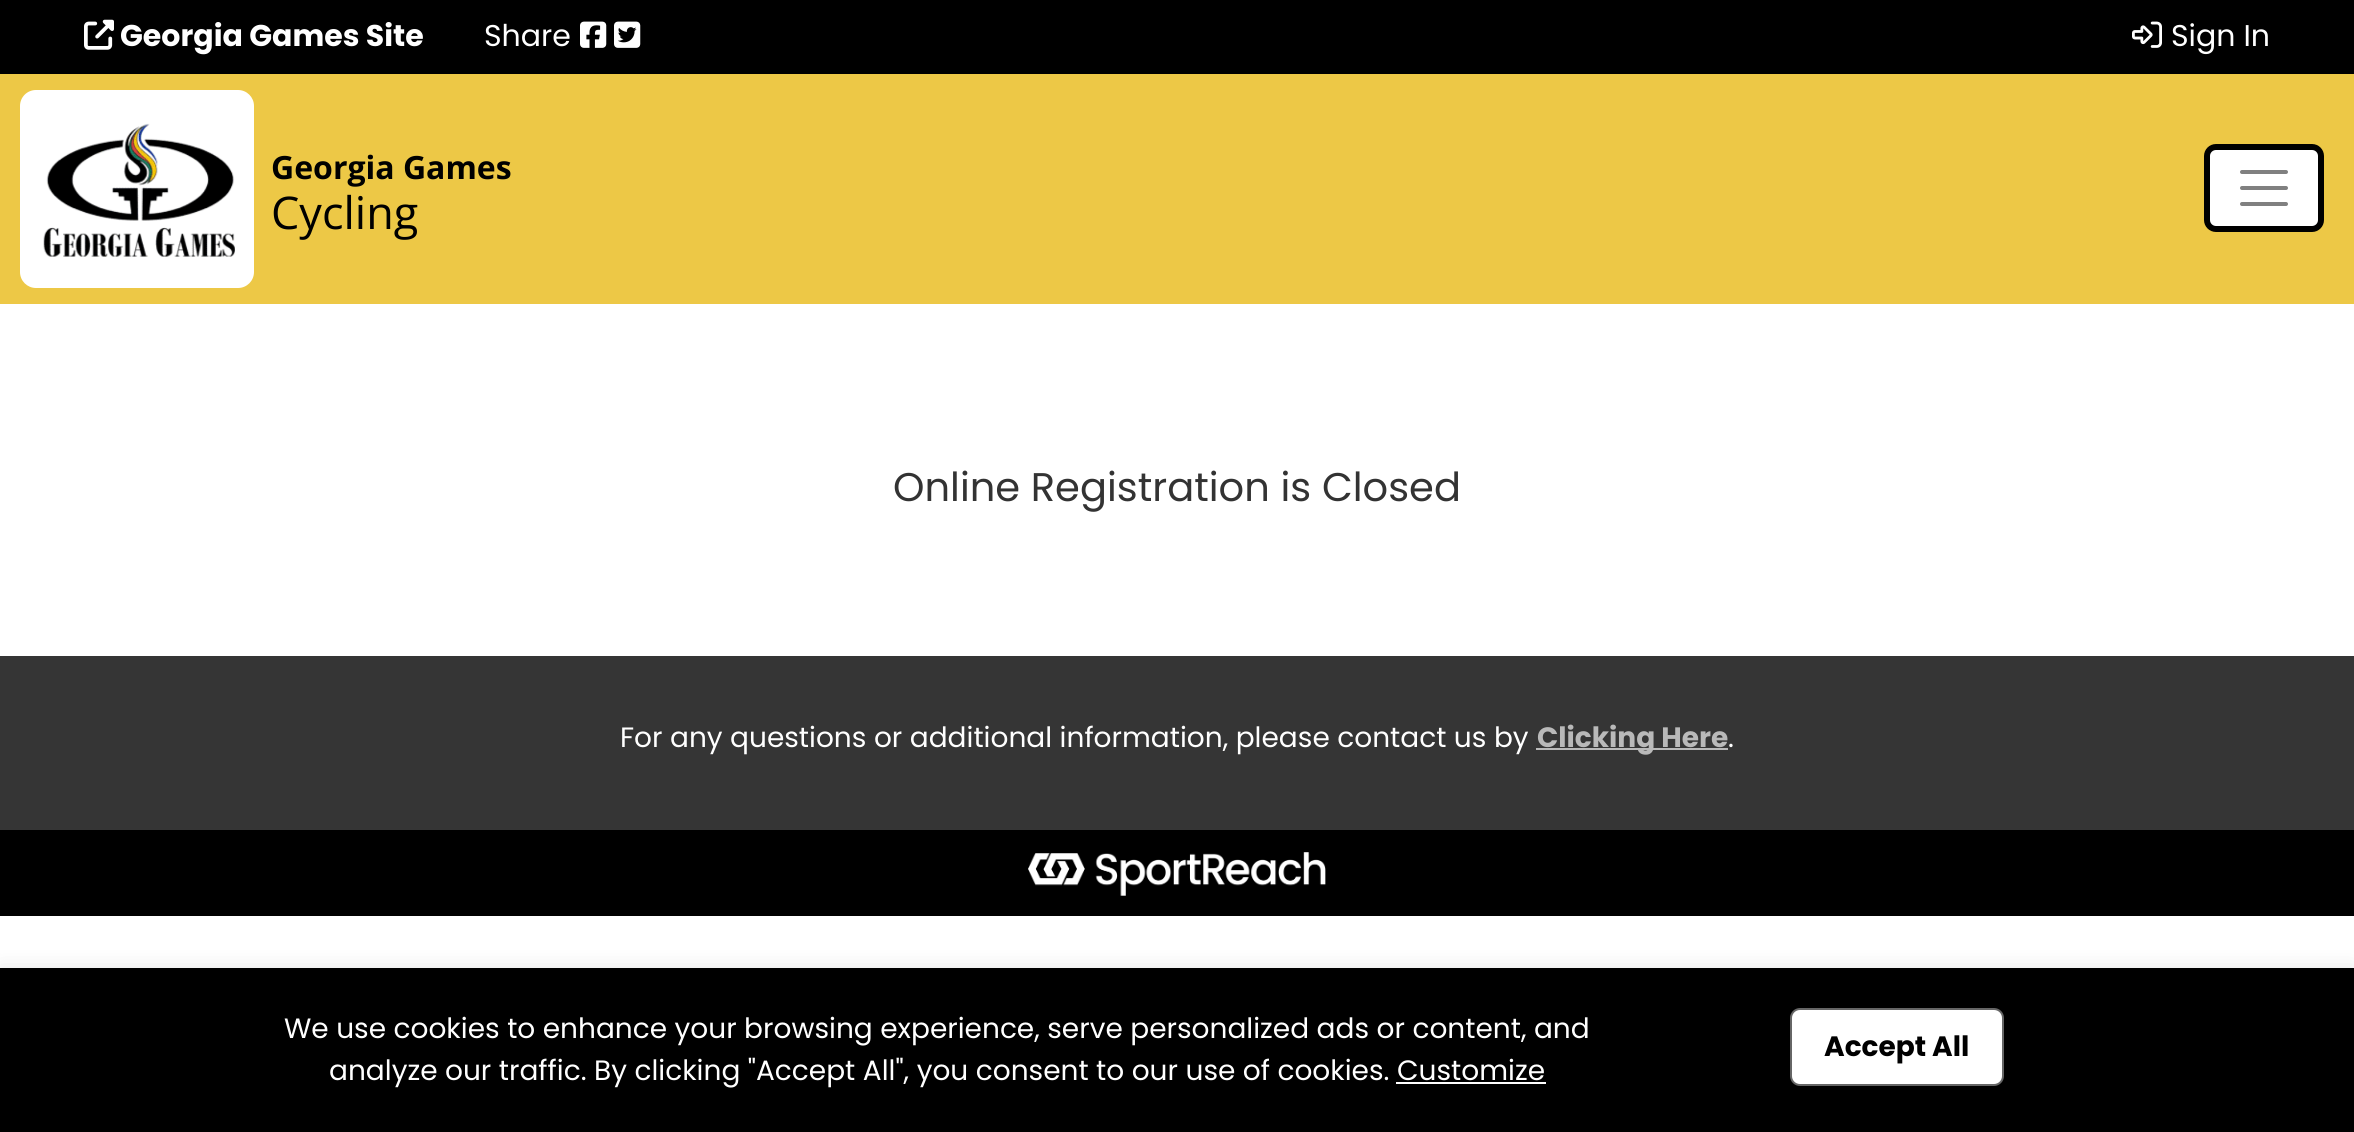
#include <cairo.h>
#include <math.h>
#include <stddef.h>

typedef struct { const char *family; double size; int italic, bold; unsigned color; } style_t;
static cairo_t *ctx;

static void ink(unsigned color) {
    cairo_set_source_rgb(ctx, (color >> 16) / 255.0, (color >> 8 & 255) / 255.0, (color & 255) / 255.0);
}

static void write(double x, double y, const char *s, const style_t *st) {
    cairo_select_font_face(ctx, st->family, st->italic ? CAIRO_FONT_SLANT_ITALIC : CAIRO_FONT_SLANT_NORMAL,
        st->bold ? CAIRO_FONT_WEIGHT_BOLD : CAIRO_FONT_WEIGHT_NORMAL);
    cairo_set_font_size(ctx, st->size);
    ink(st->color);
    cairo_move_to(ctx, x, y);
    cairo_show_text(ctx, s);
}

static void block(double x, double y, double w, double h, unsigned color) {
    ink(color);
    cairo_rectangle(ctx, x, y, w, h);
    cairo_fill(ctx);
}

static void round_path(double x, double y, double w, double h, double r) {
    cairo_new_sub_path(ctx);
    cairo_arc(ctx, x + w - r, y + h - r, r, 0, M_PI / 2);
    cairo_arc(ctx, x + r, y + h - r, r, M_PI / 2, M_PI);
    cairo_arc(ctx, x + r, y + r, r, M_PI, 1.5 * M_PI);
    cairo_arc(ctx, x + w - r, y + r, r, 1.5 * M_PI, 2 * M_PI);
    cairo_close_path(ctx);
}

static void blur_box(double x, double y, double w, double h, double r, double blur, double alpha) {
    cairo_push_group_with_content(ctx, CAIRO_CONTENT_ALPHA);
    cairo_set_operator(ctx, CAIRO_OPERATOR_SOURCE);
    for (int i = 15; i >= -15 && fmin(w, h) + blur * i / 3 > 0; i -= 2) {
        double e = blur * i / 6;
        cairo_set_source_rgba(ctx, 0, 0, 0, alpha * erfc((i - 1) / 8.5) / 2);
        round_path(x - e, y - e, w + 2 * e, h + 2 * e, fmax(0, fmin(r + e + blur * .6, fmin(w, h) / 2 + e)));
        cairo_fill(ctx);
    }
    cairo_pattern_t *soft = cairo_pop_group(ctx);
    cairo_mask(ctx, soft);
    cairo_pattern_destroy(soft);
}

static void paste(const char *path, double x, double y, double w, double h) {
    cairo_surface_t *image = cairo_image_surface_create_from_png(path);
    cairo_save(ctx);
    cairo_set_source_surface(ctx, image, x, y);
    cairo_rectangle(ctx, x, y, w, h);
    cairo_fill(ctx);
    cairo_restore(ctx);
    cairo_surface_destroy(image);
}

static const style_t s1 = {"Poppins", 30, 0, 1, 0xffffff};
static const style_t s2 = {"Poppins", 30, 0, 0, 0xffffff};
static const style_t s3 = {"Open Sans", 32, 0, 1, 0x000000};
static const style_t s4 = {"Open Sans", 45, 0, 0, 0x000000};
static const style_t s5 = {"Poppins", 40, 0, 0, 0x333333};
static const style_t s6 = {"Poppins", 28, 0, 0, 0xffffff};
static const style_t s7 = {"Poppins", 28, 0, 1, 0xb9b9b9};
static const style_t s8 = {"Poppins", 28, 0, 1, 0x000000};

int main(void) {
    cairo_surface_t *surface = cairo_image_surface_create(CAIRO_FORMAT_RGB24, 2354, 1132);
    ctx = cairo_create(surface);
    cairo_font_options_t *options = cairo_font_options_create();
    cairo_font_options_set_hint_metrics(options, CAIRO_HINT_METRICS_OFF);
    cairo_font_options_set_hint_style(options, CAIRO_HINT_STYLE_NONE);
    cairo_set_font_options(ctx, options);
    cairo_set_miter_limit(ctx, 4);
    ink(0xffffff);
    cairo_paint(ctx);
    block(0, 0, 2354, 74, 0x000000);
    paste("pic1.png", 84, 19, 30, 31);
    write(120, 46, "Georgia Games Site", &s1);
    write(484, 46, "Share", &s2);
    paste("pic2.png", 580, 21, 27, 27);
    paste("pic3.png", 614, 21, 27, 27);
    paste("pic4.png", 2132, 21, 30, 27);
    write(2171, 46, "Sign In", &s2);
    block(0, 74, 2354, 230, 0xedc846);
    ink(0xffffff);
    round_path(20, 90, 234, 198, 16);
    cairo_fill(ctx);
    paste("pic5.png", 43, 123, 192, 134);
    write(271, 179, "Georgia Games", &s3);
    write(271, 229, "Cycling", &s4);
    ink(0xffffff);
    round_path(2207, 147, 114, 82, 9);
    cairo_fill_preserve(ctx);
    ink(0x000000);
    cairo_set_line_width(ctx, 6);
    cairo_stroke(ctx);
    cairo_new_path(ctx);
    cairo_move_to(ctx, 2242, 172);
    cairo_line_to(ctx, 2286, 172);
    cairo_move_to(ctx, 2242, 188);
    cairo_line_to(ctx, 2286, 188);
    cairo_move_to(ctx, 2242, 204);
    cairo_line_to(ctx, 2286, 204);
    ink(0x808080);
    cairo_set_line_width(ctx, 4);
    cairo_set_line_cap(ctx, CAIRO_LINE_CAP_ROUND);
    cairo_stroke(ctx);
    write(893, 501, "Online Registration is Closed", &s5);
    block(0, 656, 2354, 174, 0x353535);
    write(620, 747, "For any questions or additional information, please contact us by", &s6);
    block(1536, 748, 192, 2, 0xb9b9b9);
    write(1537, 747, "Clicking Here", &s7);
    write(1728, 747, ".", &s6);
    block(0, 830, 2354, 86, 0x000000);
    paste("pic6.png", 1028, 852, 298, 44);
    ink(0x000000);
    blur_box(0, 968, 2354, 164, 0, 10, 0.1);
    block(0, 968, 2354, 164, 0x000000);
    write(284, 1038, "We use cookies to enhance your browsing experience, serve personalized ads or content, and", &s6);
    write(329, 1080, "analyze our traffic. By clicking \"Accept All\", you consent to our use of cookies. Customize", &s6);
    block(1396, 1082, 150, 2, 0xffffff);
    round_path(1791, 1009, 212, 76, 9);
    cairo_fill_preserve(ctx);
    ink(0x666666);
    cairo_set_line_width(ctx, 2);
    cairo_set_line_cap(ctx, CAIRO_LINE_CAP_BUTT);
    cairo_stroke(ctx);
    write(1824, 1056, "Accept All", &s8);
    cairo_surface_write_to_png(surface, "screenshot.png");
    cairo_font_options_destroy(options);
    cairo_destroy(ctx);
    cairo_surface_destroy(surface);
    return 0;
}
